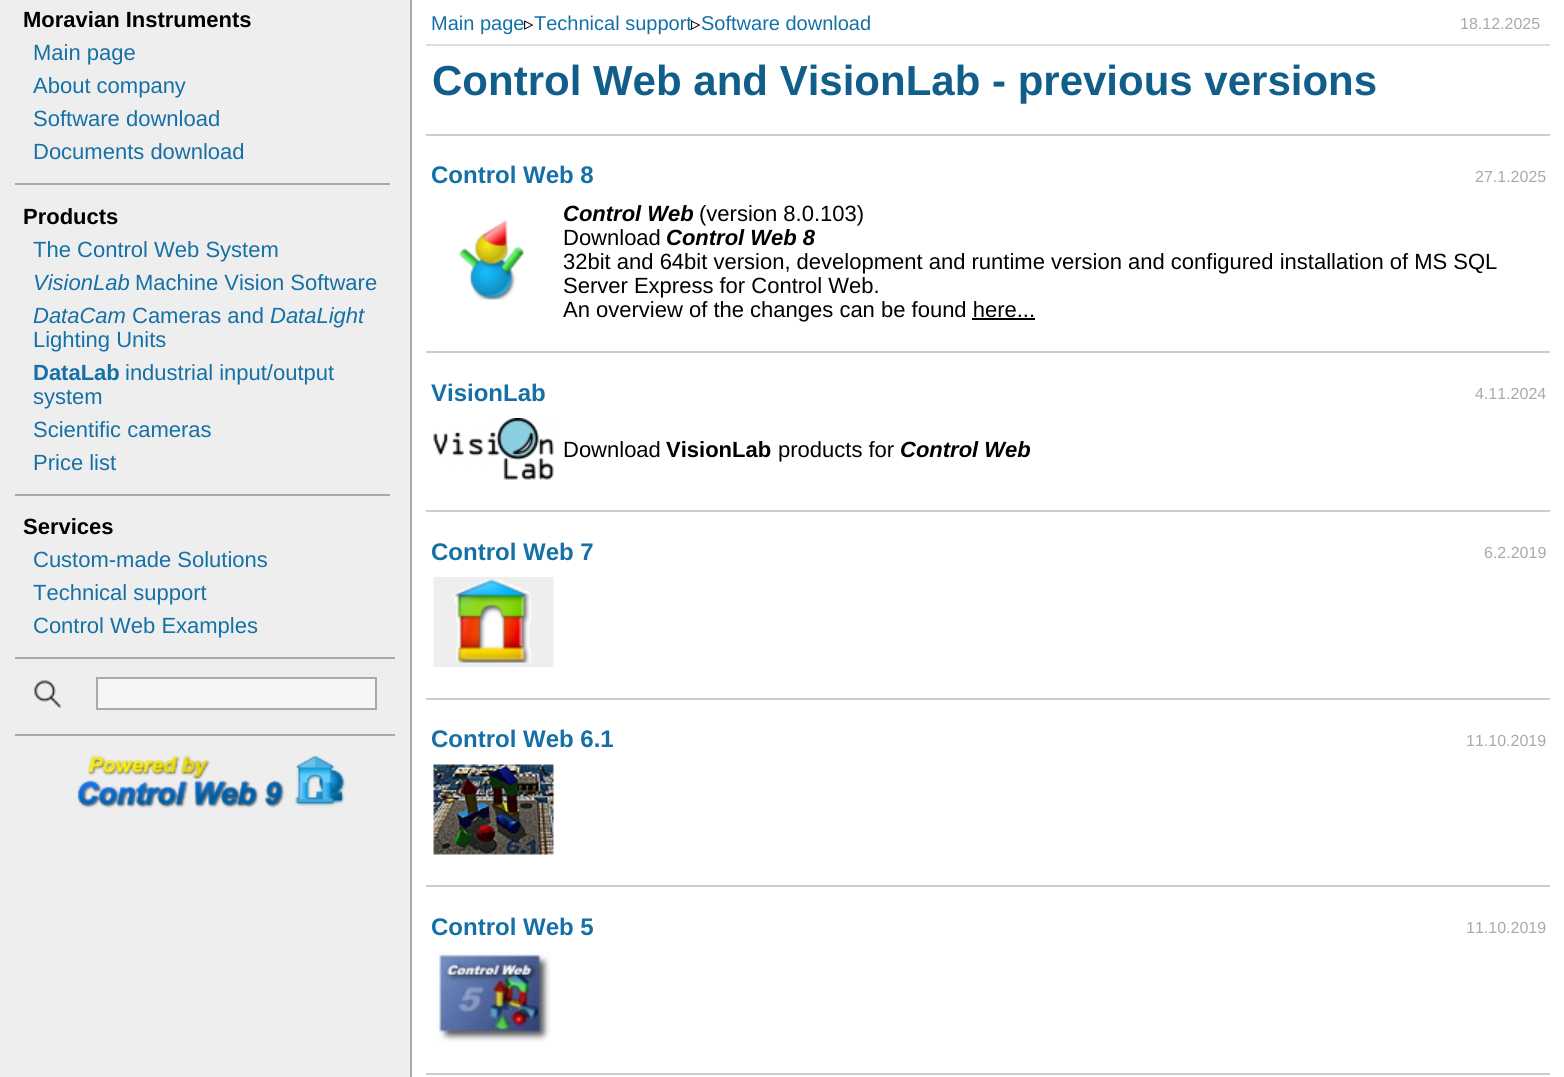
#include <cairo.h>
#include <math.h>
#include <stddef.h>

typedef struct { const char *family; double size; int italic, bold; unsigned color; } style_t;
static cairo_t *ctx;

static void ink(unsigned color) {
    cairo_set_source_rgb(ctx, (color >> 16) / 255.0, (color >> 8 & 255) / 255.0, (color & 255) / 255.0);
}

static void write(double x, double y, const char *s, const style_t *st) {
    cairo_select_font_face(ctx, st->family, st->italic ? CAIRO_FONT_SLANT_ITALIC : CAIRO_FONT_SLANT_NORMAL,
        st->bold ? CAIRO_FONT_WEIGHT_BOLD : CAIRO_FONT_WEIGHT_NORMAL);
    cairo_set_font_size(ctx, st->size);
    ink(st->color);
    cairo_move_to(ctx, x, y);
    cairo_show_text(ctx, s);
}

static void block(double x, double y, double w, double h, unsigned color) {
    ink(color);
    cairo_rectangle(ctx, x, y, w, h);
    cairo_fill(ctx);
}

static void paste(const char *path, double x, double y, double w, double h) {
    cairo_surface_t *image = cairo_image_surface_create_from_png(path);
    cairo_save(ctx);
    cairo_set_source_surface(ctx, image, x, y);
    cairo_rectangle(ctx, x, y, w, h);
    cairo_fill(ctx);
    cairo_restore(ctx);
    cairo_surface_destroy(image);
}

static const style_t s1 = {"Liberation Sans", 22, 0, 1, 0x000000};
static const style_t s2 = {"Liberation Sans", 22, 0, 0, 0x1570a6};
static const style_t s3 = {"Liberation Sans", 22, 1, 0, 0x1570a6};
static const style_t s4 = {"Liberation Sans", 22, 0, 1, 0x1570a6};
static const style_t s5 = {"Liberation Sans", 20, 0, 0, 0x1570a6};
static const style_t s6 = {"DejaVu Sans", 19, 0, 0, 0x000000};
static const style_t s7 = {"Liberation Sans", 16, 0, 0, 0xa9a9a9};
static const style_t s8 = {"Liberation Sans", 42, 0, 1, 0x125e8b};
static const style_t s9 = {"Liberation Sans", 24, 0, 1, 0x1570a6};
static const style_t s10 = {"Liberation Sans", 22, 1, 1, 0x000000};
static const style_t s11 = {"Liberation Sans", 22, 0, 0, 0x000000};

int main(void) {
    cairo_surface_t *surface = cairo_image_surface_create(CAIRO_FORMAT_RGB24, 1564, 1077);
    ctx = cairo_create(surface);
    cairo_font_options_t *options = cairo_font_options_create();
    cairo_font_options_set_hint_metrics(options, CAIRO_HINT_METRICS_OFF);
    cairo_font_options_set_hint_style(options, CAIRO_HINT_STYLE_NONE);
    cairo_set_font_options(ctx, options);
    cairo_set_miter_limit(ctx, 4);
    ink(0xffffff);
    cairo_paint(ctx);
    block(0, 0, 410, 1077, 0xeeeeee);
    write(23, 27, "Moravian Instruments", &s1);
    write(33, 60, "Main page", &s2);
    write(33, 93, "About company", &s2);
    write(33, 126, "Software download", &s2);
    write(33, 159, "Documents download", &s2);
    block(15, 183, 375, 2, 0xa9a9a9);
    write(23, 224, "Products", &s1);
    write(33, 257, "The Control Web System", &s2);
    write(33, 290, "VisionLab", &s3);
    write(135, 290, "Machine Vision Software", &s2);
    write(33, 323, "DataCam", &s3);
    write(132, 323, "Cameras and", &s2);
    write(270, 323, "DataLight", &s3);
    write(33, 347, "Lighting Units", &s2);
    write(33, 380, "DataLab", &s4);
    write(125, 380, "industrial input/output", &s2);
    write(33, 404, "system", &s2);
    write(33, 437, "Scientific cameras", &s2);
    write(33, 470, "Price list", &s2);
    block(15, 494, 375, 2, 0xa9a9a9);
    write(23, 534, "Services", &s1);
    write(33, 567, "Custom-made Solutions", &s2);
    write(33, 600, "Technical support", &s2);
    write(33, 633, "Control Web Examples", &s2);
    block(15, 657, 380, 2, 0xa9a9a9);
    block(15, 734, 380, 2, 0xa9a9a9);
    paste("pic1.png", 34, 680, 28, 28);
    ink(0xf6f6f6);
    cairo_rectangle(ctx, 97, 678, 279, 31);
    cairo_fill_preserve(ctx);
    ink(0xa9a9a9);
    cairo_stroke(ctx);
    paste("pic2.png", 77, 755, 269, 53);
    block(410, 0, 2, 1077, 0xa9a9a9);
    block(426, 44, 1124, 2, 0xdddddd);
    write(431, 30, "Main page", &s5);
    write(524, 30, "▹", &s6);
    write(534, 30, "Technical support", &s5);
    write(691, 30, "▹", &s6);
    write(701, 30, "Software download", &s5);
    write(1460, 29, "18.12.2025", &s7);
    write(432, 95, "Control Web and VisionLab - previous versions", &s8);
    block(426, 134, 1124, 2, 0xcccccc);
    write(431, 183, "Control Web 8", &s9);
    write(1475, 182, "27.1.2025", &s7);
    paste("pic3.png", 458, 220, 66, 80);
    write(563, 221, "Control Web", &s10);
    write(699, 221, "(version 8.0.103)", &s11);
    write(563, 245, "Download", &s11);
    write(666, 245, "Control Web 8", &s10);
    write(563, 269, "32bit and 64bit version, development and runtime version and configured installation of MS SQL", &s11);
    write(563, 293, "Server Express for Control Web.", &s11);
    write(563, 317, "An overview of the changes can be found here...", &s11);
    block(972, 318, 63, 2, 0x000000);
    block(426, 351, 1124, 2, 0xcccccc);
    write(431, 401, "VisionLab", &s9);
    write(1475, 399, "4.11.2024", &s7);
    paste("pic4.png", 433, 418, 121, 62);
    write(563, 457, "Download", &s11);
    write(666, 457, "VisionLab", &s1);
    write(778, 457, "products for", &s11);
    write(900, 457, "Control Web", &s10);
    block(426, 510, 1124, 2, 0xcccccc);
    write(431, 560, "Control Web 7", &s9);
    write(1484, 558, "6.2.2019", &s7);
    paste("pic5.png", 433, 577, 121, 90);
    block(426, 698, 1124, 2, 0xcccccc);
    write(431, 747, "Control Web 6.1", &s9);
    write(1466, 746, "11.10.2019", &s7);
    paste("pic6.png", 433, 764, 121, 91);
    block(426, 885, 1124, 2, 0xcccccc);
    write(431, 935, "Control Web 5", &s9);
    write(1466, 933, "11.10.2019", &s7);
    paste("pic7.png", 436, 952, 115, 90);
    block(426, 1073, 1124, 2, 0xcccccc);
    cairo_surface_write_to_png(surface, "screenshot.png");
    cairo_font_options_destroy(options);
    cairo_destroy(ctx);
    cairo_surface_destroy(surface);
    return 0;
}
